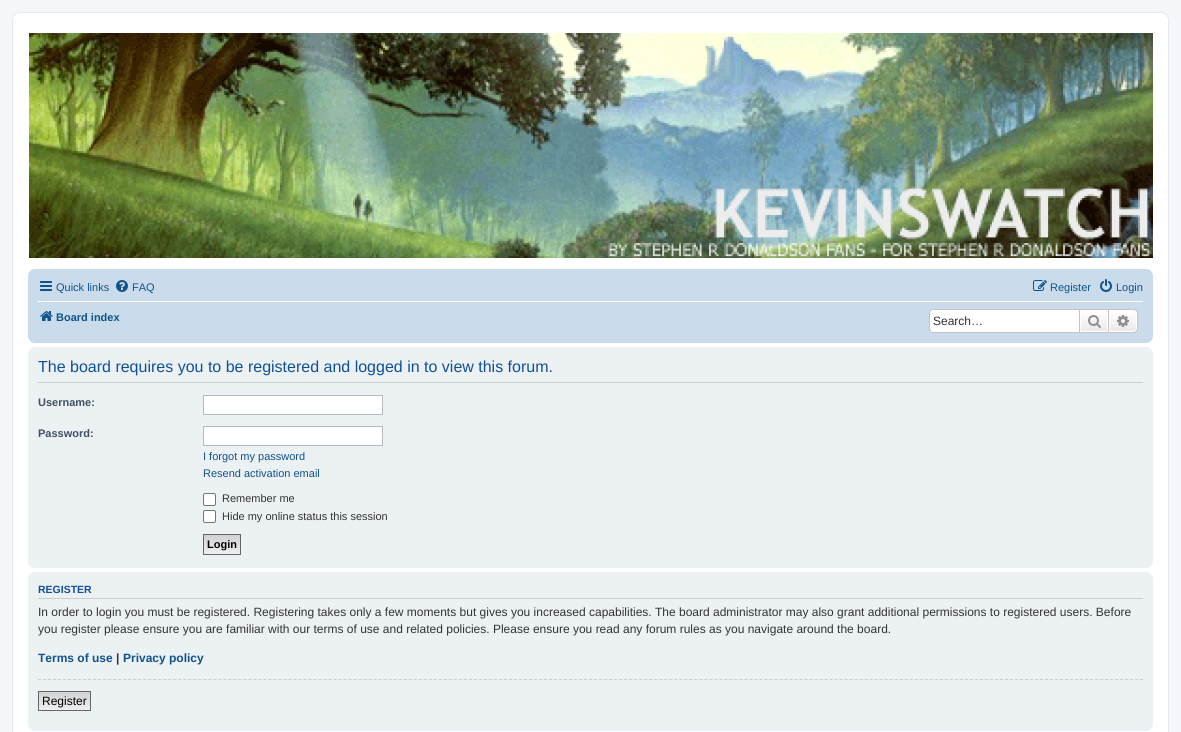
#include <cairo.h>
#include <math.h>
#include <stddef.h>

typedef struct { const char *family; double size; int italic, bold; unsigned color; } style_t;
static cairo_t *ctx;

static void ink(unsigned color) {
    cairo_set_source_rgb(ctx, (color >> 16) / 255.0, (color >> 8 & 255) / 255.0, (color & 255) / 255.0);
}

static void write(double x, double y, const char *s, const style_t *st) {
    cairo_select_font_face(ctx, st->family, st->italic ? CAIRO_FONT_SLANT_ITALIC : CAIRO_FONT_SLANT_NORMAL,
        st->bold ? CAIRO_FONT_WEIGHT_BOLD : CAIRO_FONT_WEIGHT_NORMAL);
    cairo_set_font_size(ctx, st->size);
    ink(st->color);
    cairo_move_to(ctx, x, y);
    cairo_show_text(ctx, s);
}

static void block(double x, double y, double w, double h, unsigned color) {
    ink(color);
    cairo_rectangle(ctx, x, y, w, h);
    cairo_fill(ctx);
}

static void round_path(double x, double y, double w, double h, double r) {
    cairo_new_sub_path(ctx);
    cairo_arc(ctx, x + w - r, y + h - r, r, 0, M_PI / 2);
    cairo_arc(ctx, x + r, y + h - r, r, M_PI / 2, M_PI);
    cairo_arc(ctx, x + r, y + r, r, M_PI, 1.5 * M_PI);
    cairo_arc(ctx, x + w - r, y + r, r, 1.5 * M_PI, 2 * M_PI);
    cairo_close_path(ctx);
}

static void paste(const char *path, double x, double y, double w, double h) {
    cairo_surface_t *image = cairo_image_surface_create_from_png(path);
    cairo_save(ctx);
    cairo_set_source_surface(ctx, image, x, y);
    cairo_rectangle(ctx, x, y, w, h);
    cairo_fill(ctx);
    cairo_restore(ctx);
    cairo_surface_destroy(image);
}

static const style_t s1 = {"Liberation Sans", 11, 0, 0, 0x105289};
static const style_t s2 = {"Liberation Sans", 11, 0, 1, 0x105289};
static const style_t s3 = {"Liberation Sans", 12, 0, 0, 0x333333};
static const style_t s4 = {"Liberation Sans", 16, 0, 0, 0x115098};
static const style_t s5 = {"Liberation Sans", 11, 0, 1, 0x425067};
static const style_t s6 = {"Liberation Sans", 11, 0, 0, 0x333333};
static const style_t s7 = {"Liberation Sans", 11, 0, 1, 0x000000};
static const style_t s8 = {"Liberation Sans", 10.5, 0, 1, 0x115098};
static const style_t s9 = {"Liberation Sans", 12, 0, 1, 0x105289};
static const style_t s10 = {"Liberation Sans", 12, 0, 1, 0x333333};
static const style_t s11 = {"Liberation Sans", 12, 0, 0, 0x000000};

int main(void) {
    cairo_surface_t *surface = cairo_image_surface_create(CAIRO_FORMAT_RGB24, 1181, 732);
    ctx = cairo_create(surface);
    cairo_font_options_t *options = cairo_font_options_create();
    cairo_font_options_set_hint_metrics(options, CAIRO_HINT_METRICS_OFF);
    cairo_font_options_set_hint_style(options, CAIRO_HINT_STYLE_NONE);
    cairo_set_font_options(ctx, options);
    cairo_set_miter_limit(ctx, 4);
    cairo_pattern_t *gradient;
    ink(0xf5f7fa);
    cairo_paint(ctx);
    ink(0xffffff);
    round_path(12.5, 12.5, 1156, 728, 7.5);
    cairo_fill_preserve(ctx);
    ink(0xe6e9ed);
    cairo_set_line_width(ctx, 1);
    cairo_stroke(ctx);
    paste("pic1.png", 29, 33, 1124, 225);
    ink(0xcadceb);
    round_path(28, 269, 1125, 74, 7);
    cairo_fill(ctx);
    paste("pic2.png", 40, 281, 12, 10);
    write(56, 291, "Quick links", &s1);
    paste("pic3.png", 116, 280, 12, 12);
    write(132, 291, "FAQ", &s1);
    paste("pic4.png", 1033, 280, 14, 11);
    write(1050, 291, "Register", &s1);
    paste("pic5.png", 1100, 279, 12, 13);
    write(1116, 291, "Login", &s1);
    block(38, 301, 1105, 1, 0xffffff);
    paste("pic6.png", 40, 311, 13, 10);
    write(56, 321, "Board index", &s2);
    ink(0xffffff);
    cairo_new_path(ctx);
    cairo_move_to(ctx, 933, 310);
    cairo_line_to(ctx, 1079, 310);
    cairo_line_to(ctx, 1079, 332);
    cairo_line_to(ctx, 933, 332);
    cairo_curve_to(ctx, 931.5, 332, 930, 330.5, 930, 329);
    cairo_line_to(ctx, 930, 313);
    cairo_curve_to(ctx, 930, 311.5, 931.5, 310, 933, 310);
    cairo_close_path(ctx);
    cairo_fill(ctx);
    ink(0xc7c3bf);
    cairo_set_fill_rule(ctx, CAIRO_FILL_RULE_EVEN_ODD);
    cairo_new_path(ctx);
    cairo_move_to(ctx, 933, 309);
    cairo_line_to(ctx, 1079, 309);
    cairo_line_to(ctx, 1079, 333);
    cairo_line_to(ctx, 933, 333);
    cairo_curve_to(ctx, 931, 333, 929, 331, 929, 329);
    cairo_line_to(ctx, 929, 313);
    cairo_curve_to(ctx, 929, 311, 931, 309, 933, 309);
    cairo_close_path(ctx);
    cairo_move_to(ctx, 933, 310);
    cairo_line_to(ctx, 1079, 310);
    cairo_line_to(ctx, 1079, 332);
    cairo_line_to(ctx, 933, 332);
    cairo_curve_to(ctx, 931, 332, 930, 331, 930, 329);
    cairo_line_to(ctx, 930, 313);
    cairo_curve_to(ctx, 930, 311, 931, 310, 933, 310);
    cairo_close_path(ctx);
    cairo_fill(ctx);
    write(933, 325, "Search…", &s3);
    gradient = cairo_pattern_create_linear(1094, 310, 1094, 332);
    cairo_pattern_add_color_stop_rgba(gradient, 0, 1, 1, 1, 1);
    cairo_pattern_add_color_stop_rgba(gradient, 1, 0.914, 0.914, 0.914, 1);
    cairo_set_source(ctx, gradient);
    cairo_pattern_destroy(gradient);
    cairo_rectangle(ctx, 1081, 311, 26, 20);
    cairo_fill(ctx);
    cairo_rectangle(ctx, 1080.5, 310.5, 27, 21);
    ink(0xffffff);
    cairo_stroke(ctx);
    cairo_rectangle(ctx, 1079.5, 309.5, 29, 23);
    ink(0xc7c3bf);
    cairo_stroke(ctx);
    paste("pic7.png", 1088, 315, 13, 13);
    gradient = cairo_pattern_create_linear(1123, 310, 1123, 332);
    cairo_pattern_add_color_stop_rgba(gradient, 0, 1, 1, 1, 1);
    cairo_pattern_add_color_stop_rgba(gradient, 1, 0.914, 0.914, 0.914, 1);
    cairo_set_source(ctx, gradient);
    cairo_pattern_destroy(gradient);
    cairo_new_path(ctx);
    cairo_move_to(ctx, 1109.5, 310.5);
    cairo_line_to(ctx, 1134, 310.5);
    cairo_curve_to(ctx, 1135.5, 310.5, 1136.5, 311.5, 1136.5, 313);
    cairo_line_to(ctx, 1136.5, 329);
    cairo_curve_to(ctx, 1136.5, 330.5, 1135.5, 331.5, 1134, 331.5);
    cairo_line_to(ctx, 1109.5, 331.5);
    cairo_close_path(ctx);
    cairo_fill_preserve(ctx);
    ink(0xffffff);
    cairo_stroke(ctx);
    ink(0xc7c3bf);
    cairo_new_path(ctx);
    cairo_move_to(ctx, 1109, 309);
    cairo_line_to(ctx, 1134, 309);
    cairo_curve_to(ctx, 1136, 309, 1138, 311, 1138, 313);
    cairo_line_to(ctx, 1138, 329);
    cairo_curve_to(ctx, 1138, 331, 1136, 333, 1134, 333);
    cairo_line_to(ctx, 1109, 333);
    cairo_close_path(ctx);
    cairo_move_to(ctx, 1109, 310);
    cairo_line_to(ctx, 1134, 310);
    cairo_curve_to(ctx, 1135.5, 310, 1137, 311.5, 1137, 313);
    cairo_line_to(ctx, 1137, 329);
    cairo_curve_to(ctx, 1137, 330.5, 1135.5, 332, 1134, 332);
    cairo_line_to(ctx, 1109, 332);
    cairo_close_path(ctx);
    cairo_fill(ctx);
    paste("pic8.png", 1117, 315, 12, 12);
    ink(0xecf1f3);
    round_path(28, 347, 1125, 221, 7);
    cairo_fill(ctx);
    block(38, 382, 1105, 1, 0xcccccc);
    write(38, 372, "The board requires you to be registered and logged in to view this forum.", &s4);
    write(38, 406, "Username:", &s5);
    ink(0xffffff);
    cairo_rectangle(ctx, 203.5, 395.5, 179, 19);
    cairo_fill_preserve(ctx);
    ink(0xb4bac0);
    cairo_stroke(ctx);
    write(38, 437, "Password:", &s5);
    ink(0xffffff);
    cairo_rectangle(ctx, 203.5, 426.5, 179, 19);
    cairo_fill_preserve(ctx);
    ink(0xb4bac0);
    cairo_stroke(ctx);
    write(203, 460, "I forgot my password", &s1);
    write(203, 477, "Resend activation email", &s1);
    ink(0xffffff);
    round_path(203.5, 493.5, 12, 12, 1.5);
    cairo_fill_preserve(ctx);
    ink(0x767676);
    cairo_stroke(ctx);
    write(222, 502, "Remember me", &s6);
    ink(0xffffff);
    round_path(203.5, 510.5, 12, 12, 1.5);
    cairo_fill_preserve(ctx);
    ink(0x767676);
    cairo_stroke(ctx);
    write(222, 520, "Hide my online status this session", &s6);
    gradient = cairo_pattern_create_linear(222, 535, 222, 554);
    cairo_pattern_add_color_stop_rgba(gradient, 0, 0.824, 0.824, 0.824, 1);
    cairo_pattern_add_color_stop_rgba(gradient, 1, 0.937, 0.937, 0.937, 1);
    cairo_set_source(ctx, gradient);
    cairo_pattern_destroy(gradient);
    cairo_rectangle(ctx, 204, 535, 36, 19);
    cairo_fill(ctx);
    cairo_rectangle(ctx, 203.5, 534.5, 37, 20);
    ink(0x666666);
    cairo_stroke(ctx);
    write(207, 548, "Login", &s7);
    ink(0xecf1f3);
    round_path(28, 572, 1125, 159, 7);
    cairo_fill(ctx);
    block(38, 598, 1105, 1, 0xcccccc);
    write(38, 593, "REGISTER", &s8);
    write(38, 616, "In order to login you must be registered. Registering takes only a few moments but gives you increased capabilities. The board administrator may also grant additional permissions to registered users. Before", &s3);
    write(38, 633, "you register please ensure you are familiar with our terms of use and related policies. Please ensure you read any forum rules as you navigate around the board.", &s3);
    write(38, 662, "Terms of use", &s9);
    write(116, 662, "|", &s10);
    write(123, 662, "Privacy policy", &s9);
    cairo_new_path(ctx);
    cairo_move_to(ctx, 38, 679.5);
    cairo_line_to(ctx, 1143, 679.5);
    ink(0xcccccc);
    cairo_set_dash(ctx, (double[]){3, 2.01}, 2, 0);
    cairo_stroke(ctx);
    gradient = cairo_pattern_create_linear(65, 692, 65, 710);
    cairo_pattern_add_color_stop_rgba(gradient, 0, 0.824, 0.824, 0.824, 1);
    cairo_pattern_add_color_stop_rgba(gradient, 1, 0.937, 0.937, 0.937, 1);
    cairo_set_source(ctx, gradient);
    cairo_pattern_destroy(gradient);
    cairo_rectangle(ctx, 39, 692, 51, 18);
    cairo_fill(ctx);
    cairo_rectangle(ctx, 38.5, 691.5, 52, 19);
    ink(0x666666);
    cairo_set_dash(ctx, NULL, 0, 0);
    cairo_stroke(ctx);
    write(42, 705, "Register", &s11);
    cairo_surface_write_to_png(surface, "screenshot.png");
    cairo_font_options_destroy(options);
    cairo_destroy(ctx);
    cairo_surface_destroy(surface);
    return 0;
}
